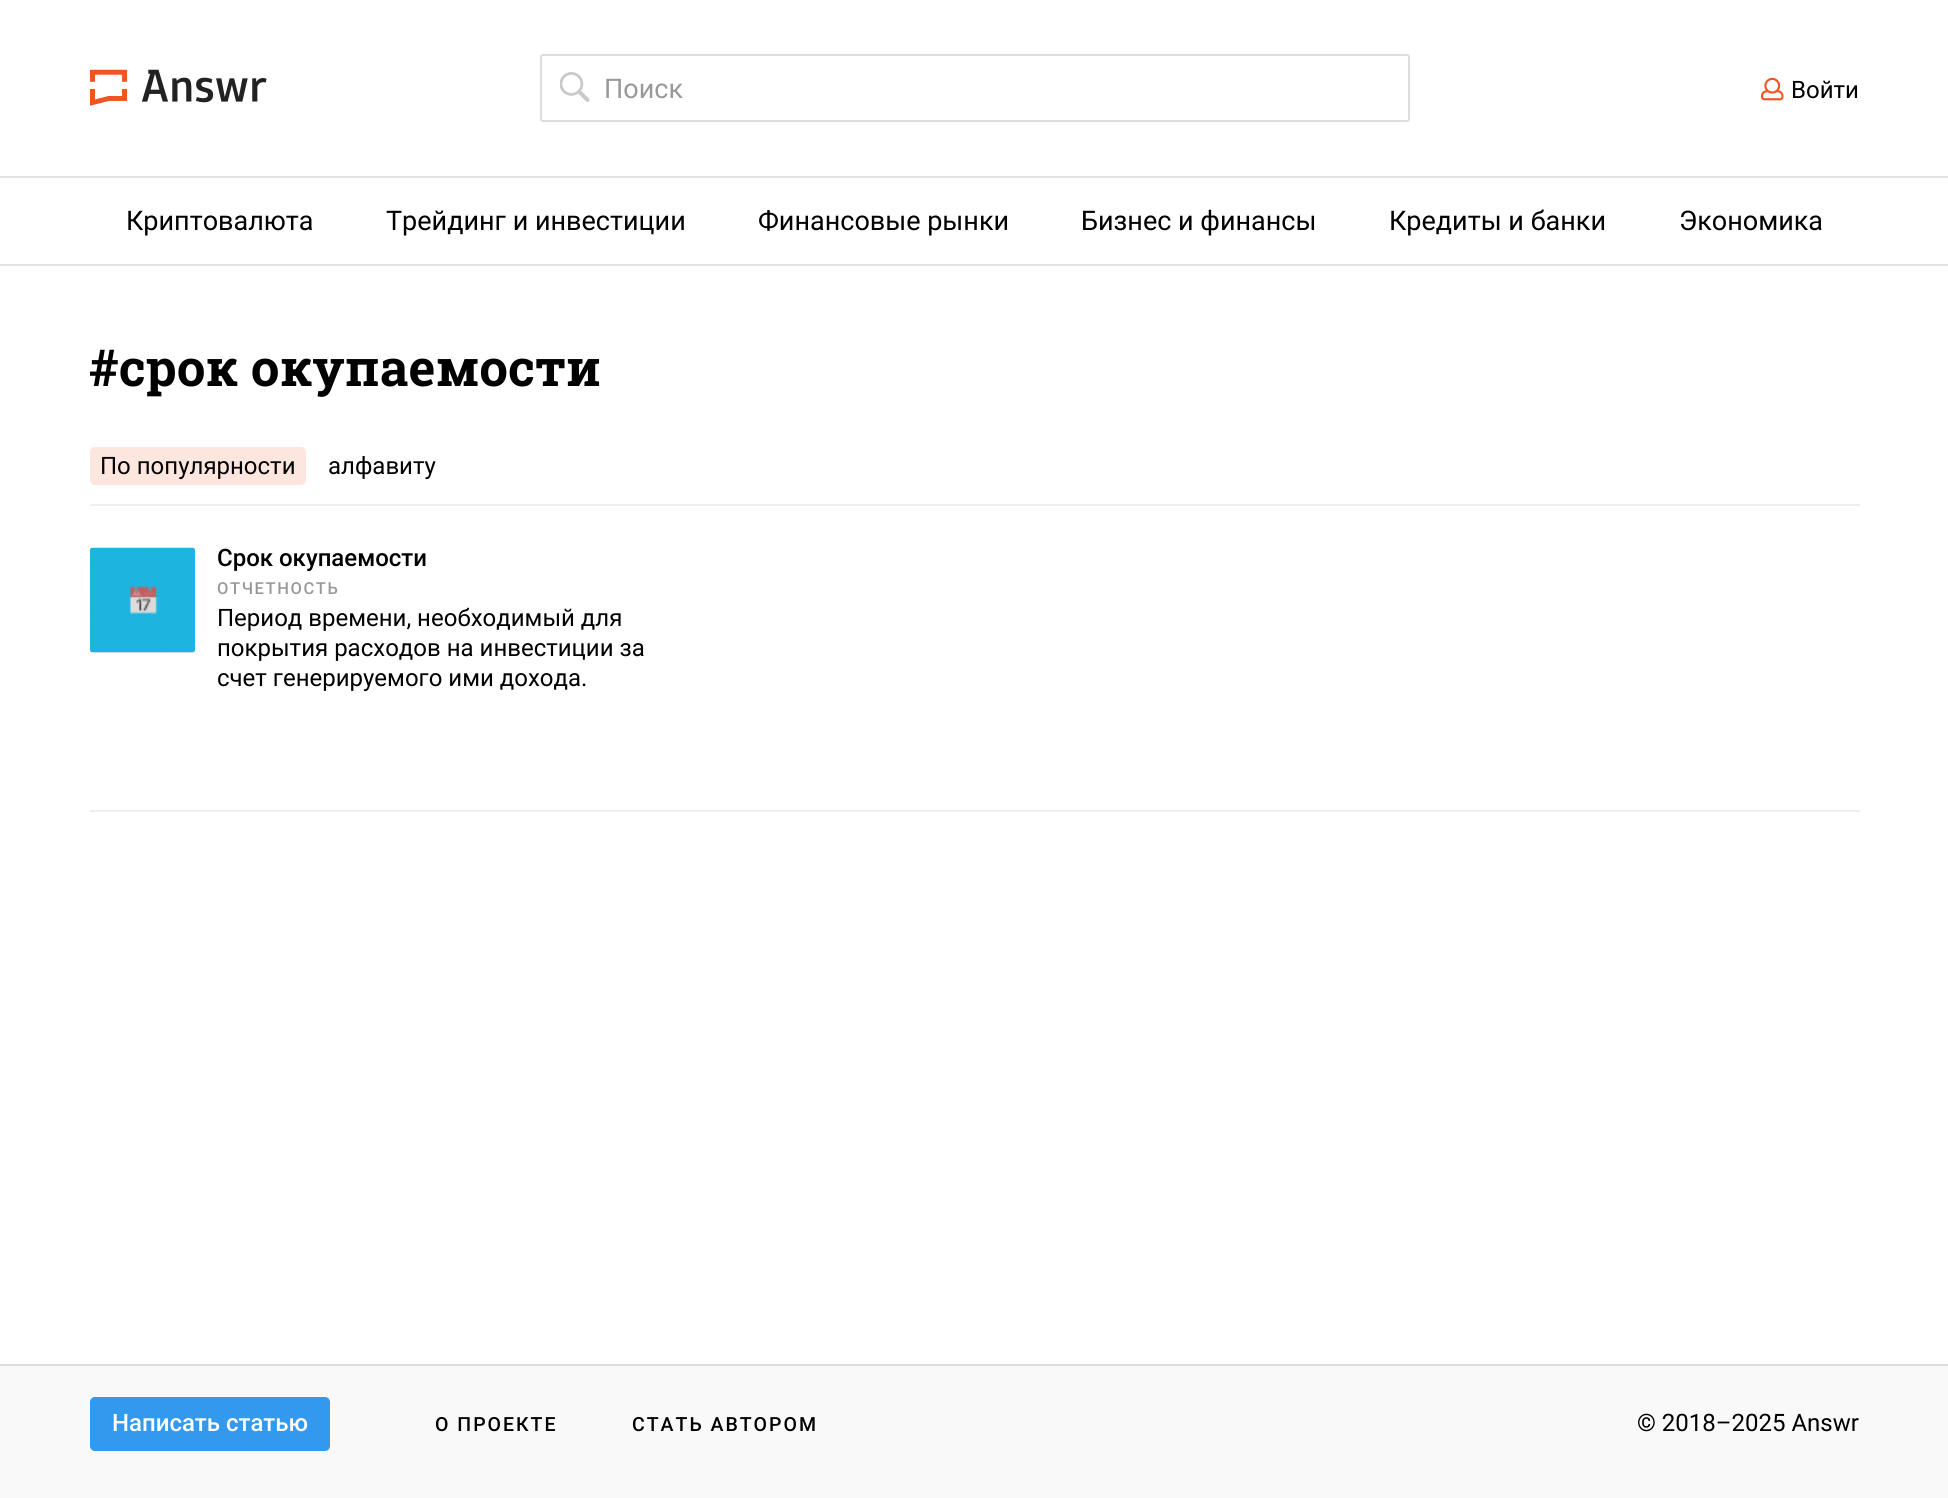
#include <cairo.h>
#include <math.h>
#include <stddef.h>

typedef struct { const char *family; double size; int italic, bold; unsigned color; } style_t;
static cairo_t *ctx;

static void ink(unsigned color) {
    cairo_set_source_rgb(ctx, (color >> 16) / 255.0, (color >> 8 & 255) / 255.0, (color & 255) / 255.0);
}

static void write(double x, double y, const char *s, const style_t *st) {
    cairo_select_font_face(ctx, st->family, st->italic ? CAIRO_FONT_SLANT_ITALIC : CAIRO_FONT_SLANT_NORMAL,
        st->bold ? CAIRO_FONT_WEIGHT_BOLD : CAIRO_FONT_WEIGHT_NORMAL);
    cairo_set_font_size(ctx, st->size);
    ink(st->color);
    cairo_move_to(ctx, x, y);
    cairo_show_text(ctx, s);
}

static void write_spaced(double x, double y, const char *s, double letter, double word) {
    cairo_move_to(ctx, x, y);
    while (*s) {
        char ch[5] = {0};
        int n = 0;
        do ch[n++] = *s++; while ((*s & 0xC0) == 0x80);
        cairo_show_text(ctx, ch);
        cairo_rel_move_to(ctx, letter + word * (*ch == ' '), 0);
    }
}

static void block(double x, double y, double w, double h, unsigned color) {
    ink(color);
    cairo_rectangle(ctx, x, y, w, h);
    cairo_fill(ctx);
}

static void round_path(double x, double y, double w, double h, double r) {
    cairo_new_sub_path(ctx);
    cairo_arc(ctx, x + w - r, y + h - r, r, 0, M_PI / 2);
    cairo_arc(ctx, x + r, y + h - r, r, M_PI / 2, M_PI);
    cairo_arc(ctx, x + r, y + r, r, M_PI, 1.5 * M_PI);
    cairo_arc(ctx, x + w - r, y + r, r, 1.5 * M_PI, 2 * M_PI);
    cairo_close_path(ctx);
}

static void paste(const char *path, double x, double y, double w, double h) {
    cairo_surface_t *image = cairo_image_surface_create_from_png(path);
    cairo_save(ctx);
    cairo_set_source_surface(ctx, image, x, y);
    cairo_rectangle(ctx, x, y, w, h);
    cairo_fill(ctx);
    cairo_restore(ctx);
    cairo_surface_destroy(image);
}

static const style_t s1 = {"Roboto", 27, 0, 0, 0x999999};
static const style_t s2 = {"Roboto", 24, 0, 0, 0x000000};
static const style_t s3 = {"Roboto", 27, 0, 0, 0x000000};
static const style_t s4 = {"Roboto Slab", 51, 0, 1, 0x000000};
static const style_t s5 = {"Roboto Medium", 24, 0, 0, 0x000000};
static const style_t s6 = {"Roboto Medium", 24, 0, 0, 0xffffff};

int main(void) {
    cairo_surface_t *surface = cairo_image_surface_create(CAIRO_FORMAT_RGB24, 1948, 1498);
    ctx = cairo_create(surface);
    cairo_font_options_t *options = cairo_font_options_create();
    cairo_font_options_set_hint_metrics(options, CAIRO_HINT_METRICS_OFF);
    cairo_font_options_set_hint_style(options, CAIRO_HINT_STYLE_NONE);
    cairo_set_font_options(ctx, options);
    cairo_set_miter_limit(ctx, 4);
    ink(0xffffff);
    cairo_paint(ctx);
    block(0, 176, 1948, 2, 0xe4e4e4);
    paste("pic1.png", 90, 69, 177, 37);
    paste("pic2.png", 560, 72, 30, 30);
    round_path(541, 55, 868, 66, 2);
    ink(0xdddddd);
    cairo_stroke(ctx);
    write(604, 98, "Поиск", &s1);
    paste("pic3.png", 1761, 77, 23, 24);
    write(1791, 98, "Войти", &s2);
    block(0, 264, 1948, 2, 0xe4e4e4);
    write(126, 230, "Криптовалюта", &s3);
    write(386, 230, "Трейдинг и инвестиции", &s3);
    write(758, 230, "Финансовые рынки", &s3);
    write(1081, 230, "Бизнес и финансы", &s3);
    write(1389, 230, "Кредиты и банки", &s3);
    write(1679, 230, "Экономика", &s3);
    block(90, 504, 1770, 2, 0xeeeeee);
    write(89, 386, "#срок окупаемости", &s4);
    ink(0xfce6de);
    round_path(90, 447, 216, 38, 5);
    cairo_fill(ctx);
    write(100, 474, "По популярности", &s2);
    write(328, 474, "алфавиту", &s2);
    ink(0xeeeeee);
    round_path(90, 548, 105, 105, 3);
    cairo_fill(ctx);
    paste("pic4.png", 90, 547, 105, 106);
    write(217, 566, "Срок окупаемости", &s5);
    cairo_set_font_size(ctx, 16.5);
    ink(0x999999);
    write_spaced(217, 594, "ОТЧЕТНОСТЬ", 1.6, 0);
    write(217, 626, "Период времени, необходимый для", &s2);
    write(217, 656, "покрытия расходов на инвестиции за", &s2);
    cairo_save(ctx);
    cairo_rectangle(ctx, 218, 603, 442, 90);
    cairo_clip(ctx);
    write(217, 686, "счет генерируемого ими дохода.", &s2);
    cairo_restore(ctx);
    block(90, 810, 1770, 2, 0xeeeeee);
    block(0, 1366, 1948, 132, 0xf9f9f9);
    block(0, 1364, 1948, 2, 0xdddddd);
    ink(0x3399ee);
    round_path(90, 1397, 240, 54, 5);
    cairo_fill(ctx);
    write(112, 1431, "Написать статью", &s6);
    cairo_set_font_size(ctx, 19.5);
    ink(0x000000);
    write_spaced(435, 1431, "О ПРОЕКТЕ", 2, 0);
    write_spaced(632, 1431, "СТАТЬ АВТОРОМ", 2, 0);
    write(1637, 1431, "© 2018–2025 Answr", &s2);
    cairo_surface_write_to_png(surface, "screenshot.png");
    cairo_font_options_destroy(options);
    cairo_destroy(ctx);
    cairo_surface_destroy(surface);
    return 0;
}
